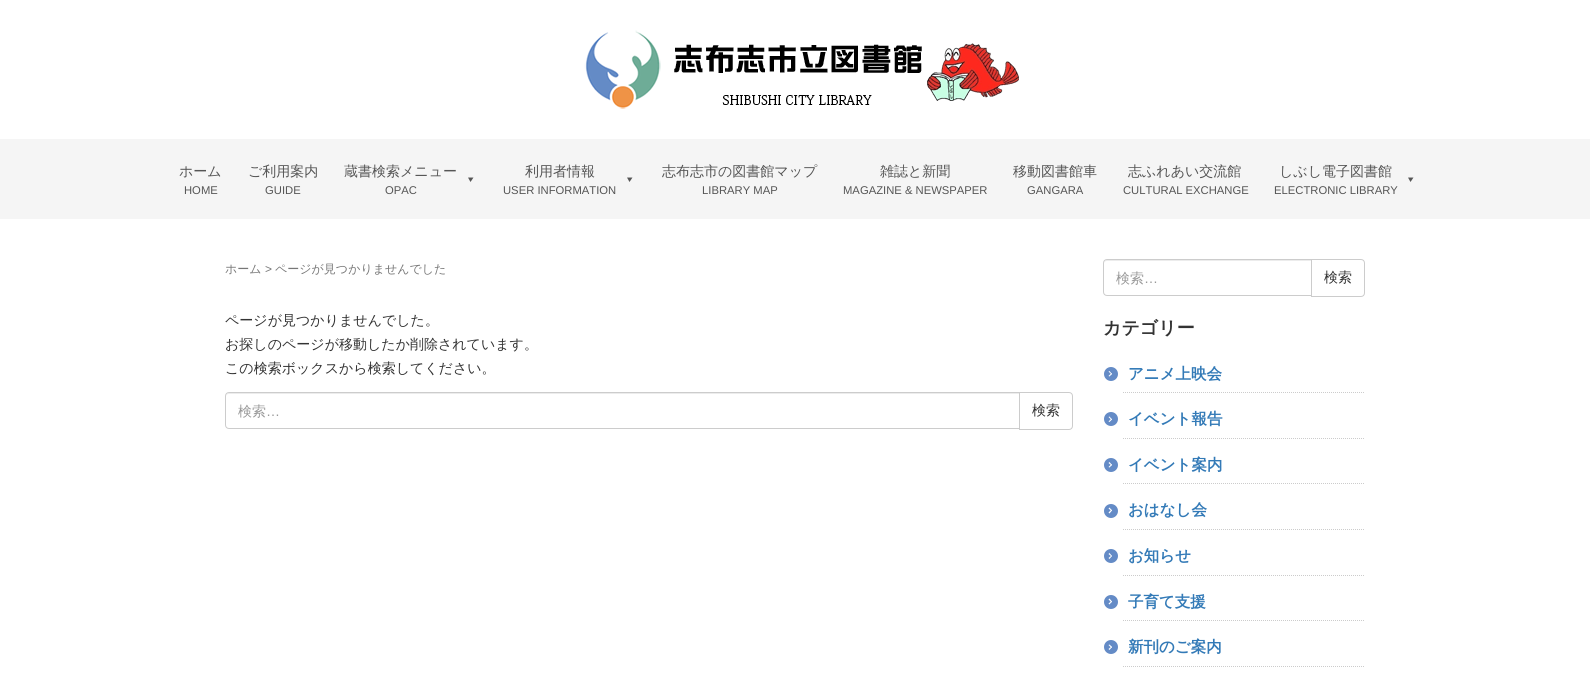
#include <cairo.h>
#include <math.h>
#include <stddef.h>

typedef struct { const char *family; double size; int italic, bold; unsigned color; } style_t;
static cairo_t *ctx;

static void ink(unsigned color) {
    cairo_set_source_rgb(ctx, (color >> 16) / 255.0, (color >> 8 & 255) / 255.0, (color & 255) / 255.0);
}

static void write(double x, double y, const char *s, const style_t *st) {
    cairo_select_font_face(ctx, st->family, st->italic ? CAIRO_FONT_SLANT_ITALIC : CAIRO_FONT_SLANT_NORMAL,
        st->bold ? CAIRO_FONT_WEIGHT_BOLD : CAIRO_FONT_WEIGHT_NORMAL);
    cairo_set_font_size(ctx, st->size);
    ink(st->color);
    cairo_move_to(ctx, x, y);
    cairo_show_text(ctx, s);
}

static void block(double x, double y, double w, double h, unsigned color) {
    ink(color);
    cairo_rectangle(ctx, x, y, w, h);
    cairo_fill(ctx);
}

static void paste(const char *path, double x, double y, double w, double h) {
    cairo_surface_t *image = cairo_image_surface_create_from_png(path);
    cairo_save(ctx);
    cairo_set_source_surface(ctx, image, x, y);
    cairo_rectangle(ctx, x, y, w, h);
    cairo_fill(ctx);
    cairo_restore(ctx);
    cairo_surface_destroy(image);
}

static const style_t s1 = {"WenQuanYi Zen Hei Medium", 14, 0, 0, 0x555555};
static const style_t s2 = {"Liberation Sans", 11.25, 0, 0, 0x555555};
static const style_t s3 = {"WenQuanYi Zen Hei Medium", 12, 0, 0, 0x777777};
static const style_t s4 = {"Liberation Sans", 12, 0, 0, 0x777777};
static const style_t s5 = {"WenQuanYi Zen Hei Medium", 14, 0, 0, 0x333333};
static const style_t s6 = {"WenQuanYi Zen Hei Medium", 14, 0, 0, 0x999999};
static const style_t s7 = {"Liberation Sans", 14, 0, 0, 0x999999};
static const style_t s8 = {"WenQuanYi Zen Hei", 18, 0, 1, 0x333333};
static const style_t s9 = {"WenQuanYi Zen Hei", 15.5, 0, 1, 0x337ab7};

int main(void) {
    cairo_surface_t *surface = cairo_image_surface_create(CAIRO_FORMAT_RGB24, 1590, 674);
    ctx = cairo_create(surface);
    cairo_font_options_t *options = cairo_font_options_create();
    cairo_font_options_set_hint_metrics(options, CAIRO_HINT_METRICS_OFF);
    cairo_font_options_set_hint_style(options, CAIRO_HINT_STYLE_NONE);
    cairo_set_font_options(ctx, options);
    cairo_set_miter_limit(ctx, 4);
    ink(0xffffff);
    cairo_paint(ctx);
    paste("pic1.png", 584, 30, 435, 79);
    block(0, 139, 1590, 80, 0xf5f5f5);
    write(179, 176, "ホーム", &s1);
    write(184, 194, "HOME", &s2);
    write(248, 176, "ご利用案内", &s1);
    write(265, 194, "GUIDE", &s2);
    write(344, 176, "蔵書検索メニュー", &s1);
    write(385, 194, "OPAC", &s2);
    cairo_new_path(ctx);
    cairo_move_to(ctx, 473.5, 177.5);
    cairo_line_to(ctx, 470.5, 182);
    cairo_line_to(ctx, 468, 177.5);
    cairo_close_path(ctx);
    cairo_fill(ctx);
    write(525, 176, "利用者情報", &s1);
    write(503, 194, "USER INFORMATION", &s2);
    cairo_new_path(ctx);
    cairo_move_to(ctx, 632.5, 177.5);
    cairo_line_to(ctx, 629.5, 182);
    cairo_line_to(ctx, 627, 177.5);
    cairo_close_path(ctx);
    cairo_fill(ctx);
    write(662, 176, "志布志市の図書館マップ", &s1);
    write(702, 194, "LIBRARY MAP", &s2);
    write(880, 176, "雑誌と新聞", &s1);
    write(843, 194, "MAGAZINE & NEWSPAPER", &s2);
    write(1013, 176, "移動図書館車", &s1);
    write(1027, 194, "GANGARA", &s2);
    write(1128, 176, "志ふれあい交流館", &s1);
    write(1123, 194, "CULTURAL EXCHANGE", &s2);
    write(1279, 176, "しぶし電子図書館", &s1);
    write(1274, 194, "ELECTRONIC LIBRARY", &s2);
    cairo_new_path(ctx);
    cairo_move_to(ctx, 1413.5, 177.5);
    cairo_line_to(ctx, 1410.5, 182);
    cairo_line_to(ctx, 1408, 177.5);
    cairo_close_path(ctx);
    cairo_fill(ctx);
    write(225, 273, "ホーム", &s3);
    write(265, 273, ">", &s4);
    write(275, 273, "ページが見つかりませんでした", &s3);
    write(225, 325, "ページが見つかりませんでした。", &s5);
    write(225, 349, "お探しのページが移動したか削除されています。", &s5);
    write(225, 373, "この検索ボックスから検索してください。", &s5);
    cairo_new_path(ctx);
    cairo_move_to(ctx, 1019.5, 392.5);
    cairo_line_to(ctx, 1069, 392.5);
    cairo_curve_to(ctx, 1071, 392.5, 1072.5, 394, 1072.5, 396);
    cairo_line_to(ctx, 1072.5, 426);
    cairo_curve_to(ctx, 1072.5, 428, 1071, 429.5, 1069, 429.5);
    cairo_line_to(ctx, 1019.5, 429.5);
    cairo_close_path(ctx);
    ink(0xcccccc);
    cairo_set_line_width(ctx, 1);
    cairo_stroke(ctx);
    ink(0xffffff);
    cairo_new_path(ctx);
    cairo_move_to(ctx, 229, 392);
    cairo_line_to(ctx, 1020, 392);
    cairo_line_to(ctx, 1020, 429);
    cairo_line_to(ctx, 229, 429);
    cairo_curve_to(ctx, 227, 429, 225, 427, 225, 425);
    cairo_line_to(ctx, 225, 396);
    cairo_curve_to(ctx, 225, 394, 227, 392, 229, 392);
    cairo_close_path(ctx);
    cairo_fill(ctx);
    ink(0xececec);
    cairo_new_path(ctx);
    cairo_move_to(ctx, 229, 394);
    cairo_line_to(ctx, 1019, 394);
    cairo_line_to(ctx, 1019, 393);
    cairo_line_to(ctx, 229, 393);
    cairo_curve_to(ctx, 227, 393, 226, 395, 226, 397);
    cairo_curve_to(ctx, 226, 395, 227, 394, 229, 394);
    cairo_close_path(ctx);
    cairo_fill(ctx);
    cairo_new_path(ctx);
    cairo_move_to(ctx, 229, 392.5);
    cairo_line_to(ctx, 1019.5, 392.5);
    cairo_line_to(ctx, 1019.5, 428.5);
    cairo_line_to(ctx, 229, 428.5);
    cairo_curve_to(ctx, 227, 428.5, 225.5, 427, 225.5, 425);
    cairo_line_to(ctx, 225.5, 396);
    cairo_curve_to(ctx, 225.5, 394, 227, 392.5, 229, 392.5);
    cairo_close_path(ctx);
    ink(0xcccccc);
    cairo_stroke(ctx);
    write(238, 416, "検索", &s6);
    write(266, 416, "…", &s7);
    write(1032, 415, "検索", &s5);
    cairo_new_path(ctx);
    cairo_move_to(ctx, 1311.5, 259.5);
    cairo_line_to(ctx, 1361, 259.5);
    cairo_curve_to(ctx, 1363, 259.5, 1364.5, 261, 1364.5, 263);
    cairo_line_to(ctx, 1364.5, 293);
    cairo_curve_to(ctx, 1364.5, 295, 1363, 296.5, 1361, 296.5);
    cairo_line_to(ctx, 1311.5, 296.5);
    cairo_close_path(ctx);
    ink(0xcccccc);
    cairo_stroke(ctx);
    ink(0xffffff);
    cairo_new_path(ctx);
    cairo_move_to(ctx, 1107, 259);
    cairo_line_to(ctx, 1312, 259);
    cairo_line_to(ctx, 1312, 296);
    cairo_line_to(ctx, 1107, 296);
    cairo_curve_to(ctx, 1105, 296, 1103, 294, 1103, 292);
    cairo_line_to(ctx, 1103, 263);
    cairo_curve_to(ctx, 1103, 261, 1105, 259, 1107, 259);
    cairo_close_path(ctx);
    cairo_fill(ctx);
    ink(0xececec);
    cairo_new_path(ctx);
    cairo_move_to(ctx, 1107, 261);
    cairo_line_to(ctx, 1311, 261);
    cairo_line_to(ctx, 1311, 260);
    cairo_line_to(ctx, 1107, 260);
    cairo_curve_to(ctx, 1105, 260, 1104, 262, 1104, 264);
    cairo_curve_to(ctx, 1104, 262, 1105, 261, 1107, 261);
    cairo_close_path(ctx);
    cairo_fill(ctx);
    cairo_new_path(ctx);
    cairo_move_to(ctx, 1107, 259.5);
    cairo_line_to(ctx, 1311.5, 259.5);
    cairo_line_to(ctx, 1311.5, 295.5);
    cairo_line_to(ctx, 1107, 295.5);
    cairo_curve_to(ctx, 1105, 295.5, 1103.5, 294, 1103.5, 292);
    cairo_line_to(ctx, 1103.5, 263);
    cairo_curve_to(ctx, 1103.5, 261, 1105, 259.5, 1107, 259.5);
    cairo_close_path(ctx);
    ink(0xcccccc);
    cairo_stroke(ctx);
    write(1116, 283, "検索", &s6);
    write(1144, 283, "…", &s7);
    write(1324, 282, "検索", &s5);
    write(1103, 334, "カテゴリー", &s8);
    ink(0x648bc6);
    cairo_new_path(ctx);
    cairo_arc(ctx, 1111, 374, 7, 0, 2 * M_PI);
    cairo_fill(ctx);
    cairo_new_path(ctx);
    cairo_move_to(ctx, 1123, 392.5);
    cairo_line_to(ctx, 1365, 392.5);
    ink(0xcccccc);
    cairo_set_dash(ctx, (double[]){1, 1}, 2, 0);
    cairo_stroke(ctx);
    write(1128, 379, "アニメ上映会", &s9);
    ink(0xffffff);
    cairo_new_path(ctx);
    cairo_move_to(ctx, 1108.5, 371.5);
    cairo_line_to(ctx, 1109.5, 371);
    cairo_line_to(ctx, 1112, 374);
    cairo_line_to(ctx, 1111.5, 374.5);
    cairo_close_path(ctx);
    cairo_fill(ctx);
    ink(0x648bc6);
    cairo_arc(ctx, 1111, 419, 7, 0, 2 * M_PI);
    cairo_fill(ctx);
    ink(0xffffff);
    cairo_new_path(ctx);
    cairo_move_to(ctx, 1108.5, 376);
    cairo_line_to(ctx, 1111.5, 373);
    cairo_line_to(ctx, 1112, 374);
    cairo_line_to(ctx, 1109.5, 376.5);
    cairo_close_path(ctx);
    cairo_move_to(ctx, 1108.5, 417);
    cairo_line_to(ctx, 1109.5, 416.5);
    cairo_line_to(ctx, 1112, 419.5);
    cairo_line_to(ctx, 1111.5, 420);
    cairo_close_path(ctx);
    cairo_fill(ctx);
    cairo_new_path(ctx);
    cairo_move_to(ctx, 1123, 438.5);
    cairo_line_to(ctx, 1365, 438.5);
    ink(0xcccccc);
    cairo_stroke(ctx);
    write(1128, 424, "イベント報告", &s9);
    ink(0x648bc6);
    cairo_new_path(ctx);
    cairo_arc(ctx, 1111, 465, 7, 0, 2 * M_PI);
    cairo_fill(ctx);
    ink(0xffffff);
    cairo_new_path(ctx);
    cairo_move_to(ctx, 1108.5, 421.5);
    cairo_line_to(ctx, 1111.5, 418.5);
    cairo_line_to(ctx, 1112, 419.5);
    cairo_line_to(ctx, 1109.5, 422);
    cairo_close_path(ctx);
    cairo_move_to(ctx, 1108.5, 463);
    cairo_line_to(ctx, 1109.5, 462);
    cairo_line_to(ctx, 1112, 465);
    cairo_line_to(ctx, 1111.5, 465.5);
    cairo_close_path(ctx);
    cairo_fill(ctx);
    cairo_new_path(ctx);
    cairo_move_to(ctx, 1123, 483.5);
    cairo_line_to(ctx, 1365, 483.5);
    ink(0xcccccc);
    cairo_stroke(ctx);
    write(1128, 470, "イベント案内", &s9);
    ink(0x648bc6);
    cairo_new_path(ctx);
    cairo_arc(ctx, 1111, 511, 7, 0, 2 * M_PI);
    cairo_fill(ctx);
    ink(0xffffff);
    cairo_new_path(ctx);
    cairo_move_to(ctx, 1108.5, 467);
    cairo_line_to(ctx, 1111.5, 464);
    cairo_line_to(ctx, 1112, 465);
    cairo_line_to(ctx, 1109.5, 467.5);
    cairo_close_path(ctx);
    cairo_move_to(ctx, 1108.5, 508.5);
    cairo_line_to(ctx, 1109.5, 507.5);
    cairo_line_to(ctx, 1112, 510.5);
    cairo_line_to(ctx, 1111.5, 511);
    cairo_close_path(ctx);
    cairo_fill(ctx);
    cairo_new_path(ctx);
    cairo_move_to(ctx, 1123, 529.5);
    cairo_line_to(ctx, 1365, 529.5);
    ink(0xcccccc);
    cairo_stroke(ctx);
    write(1128, 515, "おはなし会", &s9);
    ink(0x648bc6);
    cairo_new_path(ctx);
    cairo_arc(ctx, 1111, 556, 7, 0, 2 * M_PI);
    cairo_fill(ctx);
    ink(0xffffff);
    cairo_new_path(ctx);
    cairo_move_to(ctx, 1108.5, 512.5);
    cairo_line_to(ctx, 1111.5, 509.5);
    cairo_line_to(ctx, 1112, 510.5);
    cairo_line_to(ctx, 1109.5, 513.5);
    cairo_close_path(ctx);
    cairo_move_to(ctx, 1108.5, 554);
    cairo_line_to(ctx, 1109.5, 553);
    cairo_line_to(ctx, 1112, 556);
    cairo_line_to(ctx, 1111.5, 556.5);
    cairo_close_path(ctx);
    cairo_fill(ctx);
    cairo_new_path(ctx);
    cairo_move_to(ctx, 1123, 575.5);
    cairo_line_to(ctx, 1365, 575.5);
    ink(0xcccccc);
    cairo_stroke(ctx);
    write(1128, 561, "お知らせ", &s9);
    ink(0x648bc6);
    cairo_new_path(ctx);
    cairo_arc(ctx, 1111, 602, 7, 0, 2 * M_PI);
    cairo_fill(ctx);
    ink(0xffffff);
    cairo_new_path(ctx);
    cairo_move_to(ctx, 1108.5, 558);
    cairo_line_to(ctx, 1111.5, 555.5);
    cairo_line_to(ctx, 1112, 556);
    cairo_line_to(ctx, 1109.5, 559);
    cairo_close_path(ctx);
    cairo_move_to(ctx, 1108.5, 599.5);
    cairo_line_to(ctx, 1109.5, 598.5);
    cairo_line_to(ctx, 1112, 601.5);
    cairo_line_to(ctx, 1111.5, 602.5);
    cairo_close_path(ctx);
    cairo_fill(ctx);
    cairo_new_path(ctx);
    cairo_move_to(ctx, 1123, 620.5);
    cairo_line_to(ctx, 1365, 620.5);
    ink(0xcccccc);
    cairo_stroke(ctx);
    write(1128, 607, "子育て支援", &s9);
    ink(0x648bc6);
    cairo_new_path(ctx);
    cairo_arc(ctx, 1111, 647, 7, 0, 2 * M_PI);
    cairo_fill(ctx);
    ink(0xffffff);
    cairo_new_path(ctx);
    cairo_move_to(ctx, 1108.5, 603.5);
    cairo_line_to(ctx, 1111.5, 601);
    cairo_line_to(ctx, 1112, 601.5);
    cairo_line_to(ctx, 1109.5, 604.5);
    cairo_close_path(ctx);
    cairo_move_to(ctx, 1108.5, 645);
    cairo_line_to(ctx, 1109.5, 644.5);
    cairo_line_to(ctx, 1112, 647);
    cairo_line_to(ctx, 1111.5, 648);
    cairo_close_path(ctx);
    cairo_fill(ctx);
    cairo_new_path(ctx);
    cairo_move_to(ctx, 1123, 666.5);
    cairo_line_to(ctx, 1365, 666.5);
    ink(0xcccccc);
    cairo_stroke(ctx);
    write(1128, 652, "新刊のご案内", &s9);
    ink(0xffffff);
    cairo_new_path(ctx);
    cairo_move_to(ctx, 1108.5, 649);
    cairo_line_to(ctx, 1111.5, 646.5);
    cairo_line_to(ctx, 1112, 647);
    cairo_line_to(ctx, 1109.5, 650);
    cairo_close_path(ctx);
    cairo_fill(ctx);
    cairo_surface_write_to_png(surface, "screenshot.png");
    cairo_font_options_destroy(options);
    cairo_destroy(ctx);
    cairo_surface_destroy(surface);
    return 0;
}
